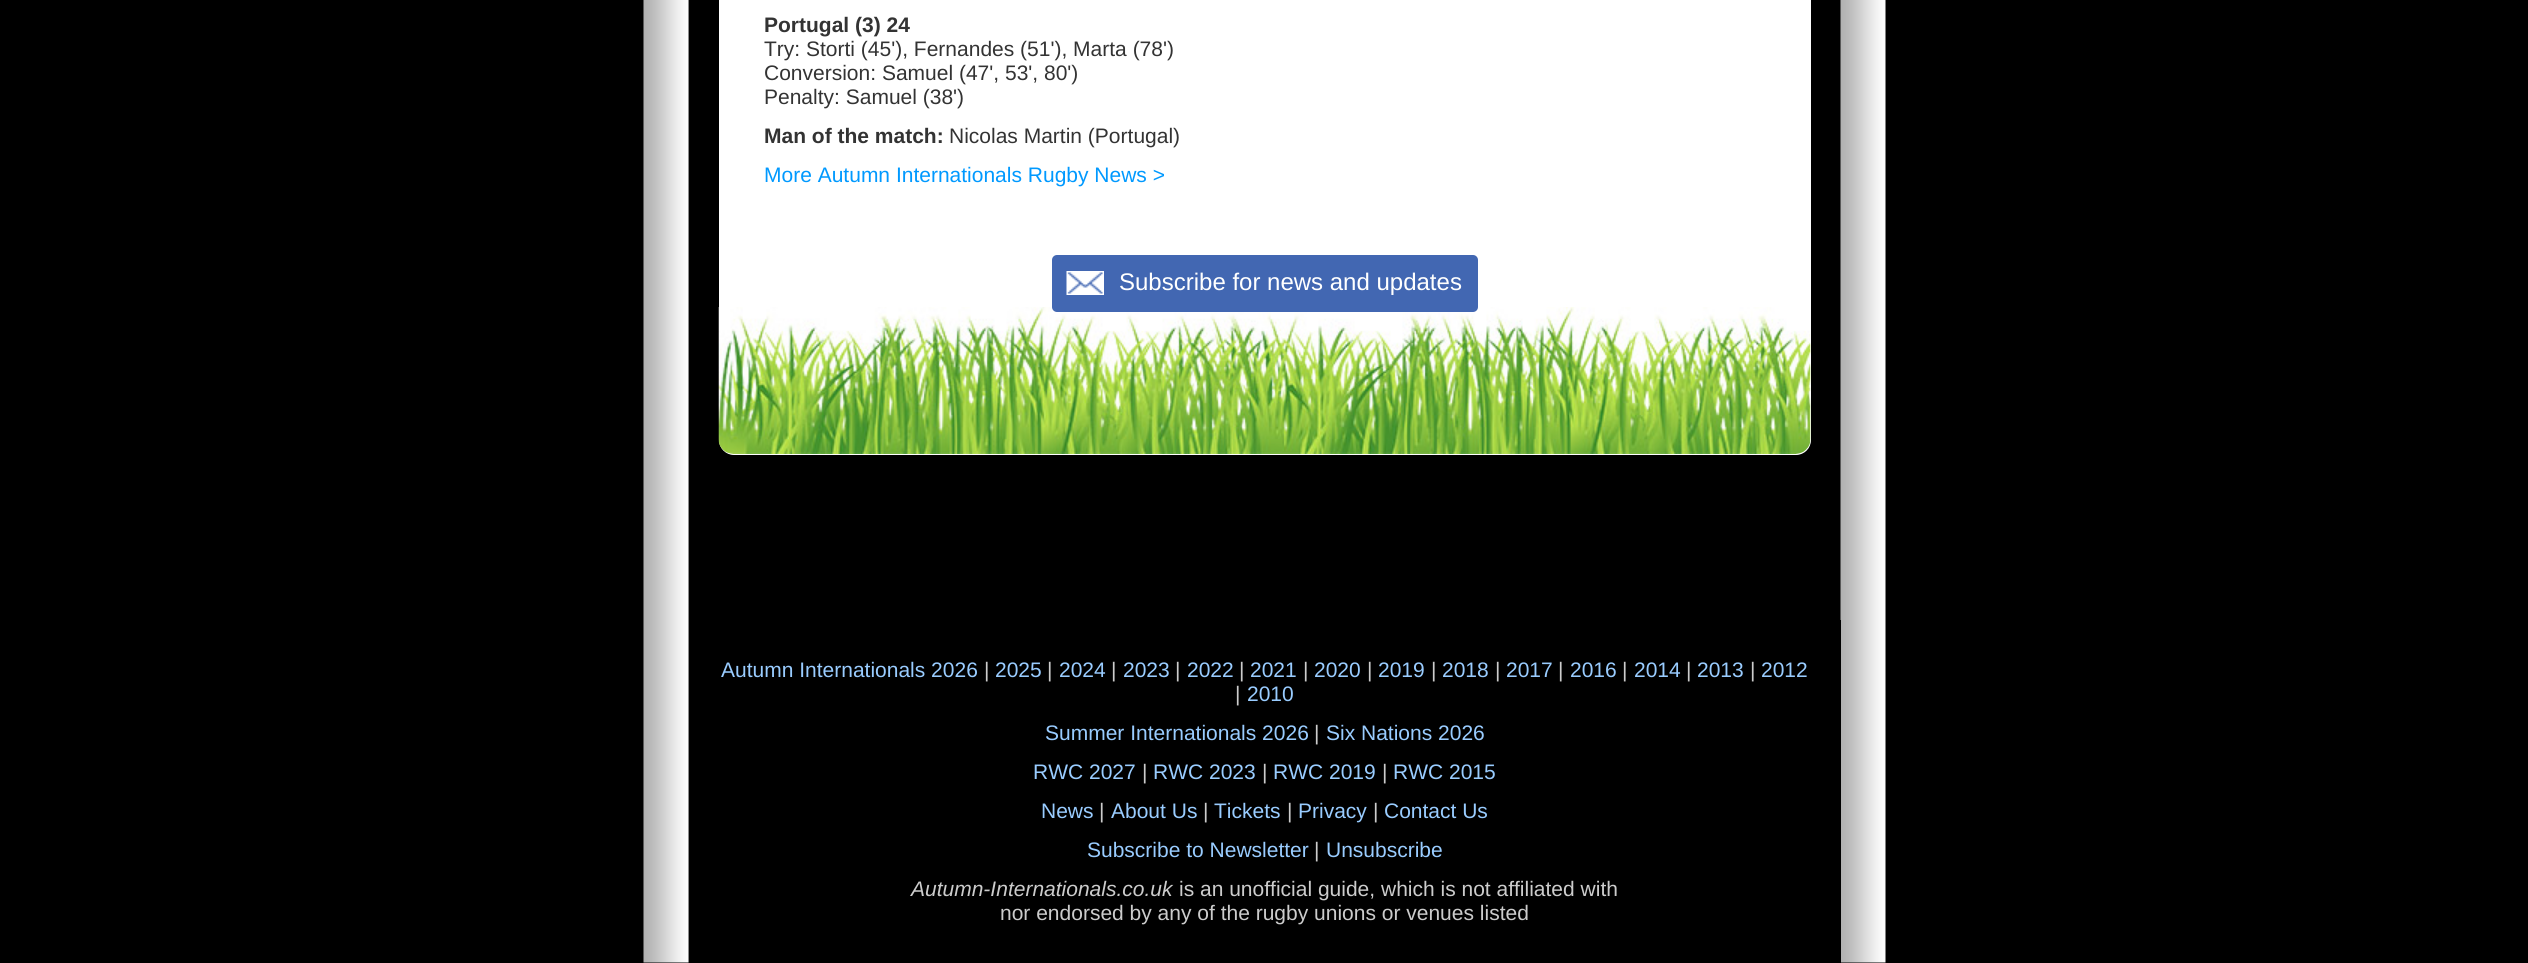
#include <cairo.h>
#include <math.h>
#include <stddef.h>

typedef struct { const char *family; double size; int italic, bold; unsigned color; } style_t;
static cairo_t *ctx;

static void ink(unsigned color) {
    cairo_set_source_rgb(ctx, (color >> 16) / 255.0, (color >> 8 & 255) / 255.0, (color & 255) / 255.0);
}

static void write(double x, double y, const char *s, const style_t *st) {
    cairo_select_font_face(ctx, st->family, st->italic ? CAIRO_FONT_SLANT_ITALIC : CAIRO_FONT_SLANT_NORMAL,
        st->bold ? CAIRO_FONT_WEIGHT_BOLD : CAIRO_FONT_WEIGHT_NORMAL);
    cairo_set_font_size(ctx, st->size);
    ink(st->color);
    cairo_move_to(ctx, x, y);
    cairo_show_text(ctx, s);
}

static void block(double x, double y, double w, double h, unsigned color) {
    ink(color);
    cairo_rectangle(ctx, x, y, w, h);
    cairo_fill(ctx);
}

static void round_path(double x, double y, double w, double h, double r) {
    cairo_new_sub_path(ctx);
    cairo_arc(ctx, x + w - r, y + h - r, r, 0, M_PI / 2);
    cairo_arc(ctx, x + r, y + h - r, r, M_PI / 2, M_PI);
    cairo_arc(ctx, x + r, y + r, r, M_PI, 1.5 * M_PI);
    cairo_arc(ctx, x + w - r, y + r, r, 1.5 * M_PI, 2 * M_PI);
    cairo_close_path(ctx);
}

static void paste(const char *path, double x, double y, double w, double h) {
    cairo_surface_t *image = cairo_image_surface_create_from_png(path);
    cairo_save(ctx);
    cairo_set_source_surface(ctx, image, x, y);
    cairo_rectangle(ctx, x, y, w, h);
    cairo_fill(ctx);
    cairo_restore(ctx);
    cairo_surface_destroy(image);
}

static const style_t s1 = {"Liberation Sans", 21, 0, 1, 0x333333};
static const style_t s2 = {"Liberation Sans", 21, 0, 0, 0x333333};
static const style_t s3 = {"Liberation Sans", 21, 0, 0, 0x0099ff};
static const style_t s4 = {"Liberation Sans", 24, 0, 0, 0xffffff};
static const style_t s5 = {"Liberation Sans", 21, 0, 0, 0x99ccff};
static const style_t s6 = {"Liberation Sans", 21, 0, 0, 0xcccccc};
static const style_t s7 = {"Liberation Sans", 21, 1, 0, 0xcccccc};

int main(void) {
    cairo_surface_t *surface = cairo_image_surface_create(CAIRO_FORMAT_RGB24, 2528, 963);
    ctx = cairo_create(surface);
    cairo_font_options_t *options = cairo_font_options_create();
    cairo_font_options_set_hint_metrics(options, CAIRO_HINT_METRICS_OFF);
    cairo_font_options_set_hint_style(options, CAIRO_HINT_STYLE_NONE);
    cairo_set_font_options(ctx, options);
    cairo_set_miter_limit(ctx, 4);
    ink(0x000000);
    cairo_paint(ctx);
    paste("pic1.png", 643, 0, 1243, 963);
    ink(0xffffff);
    round_path(719, -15, 1092, 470, 15);
    cairo_fill(ctx);
    paste("pic2.png", 718, 307, 1093, 147);
    write(764, 32, "Portugal (3) 24", &s1);
    write(764, 56, "Try: Storti (45'), Fernandes (51'), Marta (78')", &s2);
    write(764, 80, "Conversion: Samuel (47', 53', 80')", &s2);
    write(764, 104, "Penalty: Samuel (38')", &s2);
    write(764, 143, "Man of the match:", &s1);
    write(949, 143, "Nicolas Martin (Portugal)", &s2);
    write(764, 182, "More Autumn Internationals Rugby News >", &s3);
    ink(0x4267b2);
    round_path(1052, 255, 426, 57, 5);
    cairo_fill(ctx);
    paste("pic3.png", 1066, 271, 38, 24);
    write(1119, 290, "Subscribe for news and updates", &s4);
    block(1840, 620, 1, 343, 0x000000);
    write(721, 677, "Autumn Internationals 2026", &s5);
    write(984, 677, "|", &s6);
    write(995, 677, "2025", &s5);
    write(1047, 677, "|", &s6);
    write(1059, 677, "2024", &s5);
    write(1111, 677, "|", &s6);
    write(1123, 677, "2023", &s5);
    write(1175, 677, "|", &s6);
    write(1187, 677, "2022", &s5);
    write(1239, 677, "|", &s6);
    write(1250, 677, "2021", &s5);
    write(1303, 677, "|", &s6);
    write(1314, 677, "2020", &s5);
    write(1367, 677, "|", &s6);
    write(1378, 677, "2019", &s5);
    write(1431, 677, "|", &s6);
    write(1442, 677, "2018", &s5);
    write(1495, 677, "|", &s6);
    write(1506, 677, "2017", &s5);
    write(1558, 677, "|", &s6);
    write(1570, 677, "2016", &s5);
    write(1622, 677, "|", &s6);
    write(1634, 677, "2014", &s5);
    write(1686, 677, "|", &s6);
    write(1697, 677, "2013", &s5);
    write(1750, 677, "|", &s6);
    write(1761, 677, "2012", &s5);
    write(1235, 701, "|", &s6);
    write(1247, 701, "2010", &s5);
    write(1045, 740, "Summer Internationals 2026", &s5);
    write(1314, 740, "|", &s6);
    write(1326, 740, "Six Nations 2026", &s5);
    write(1033, 779, "RWC 2027", &s5);
    write(1142, 779, "|", &s6);
    write(1153, 779, "RWC 2023", &s5);
    write(1262, 779, "|", &s6);
    write(1273, 779, "RWC 2019", &s5);
    write(1382, 779, "|", &s6);
    write(1393, 779, "RWC 2015", &s5);
    write(1041, 818, "News", &s5);
    write(1099, 818, "|", &s6);
    write(1111, 818, "About Us", &s5);
    write(1203, 818, "|", &s6);
    write(1214, 818, "Tickets", &s5);
    write(1287, 818, "|", &s6);
    write(1298, 818, "Privacy", &s5);
    write(1373, 818, "|", &s6);
    write(1384, 818, "Contact Us", &s5);
    write(1087, 857, "Subscribe to Newsletter", &s5);
    write(1314, 857, "|", &s6);
    write(1326, 857, "Unsubscribe", &s5);
    write(911, 896, "Autumn-Internationals.co.uk", &s7);
    write(1179, 896, "is an unofficial guide, which is not affiliated with", &s6);
    write(1000, 920, "nor endorsed by any of the rugby unions or venues listed", &s6);
    cairo_surface_write_to_png(surface, "screenshot.png");
    cairo_font_options_destroy(options);
    cairo_destroy(ctx);
    cairo_surface_destroy(surface);
    return 0;
}
